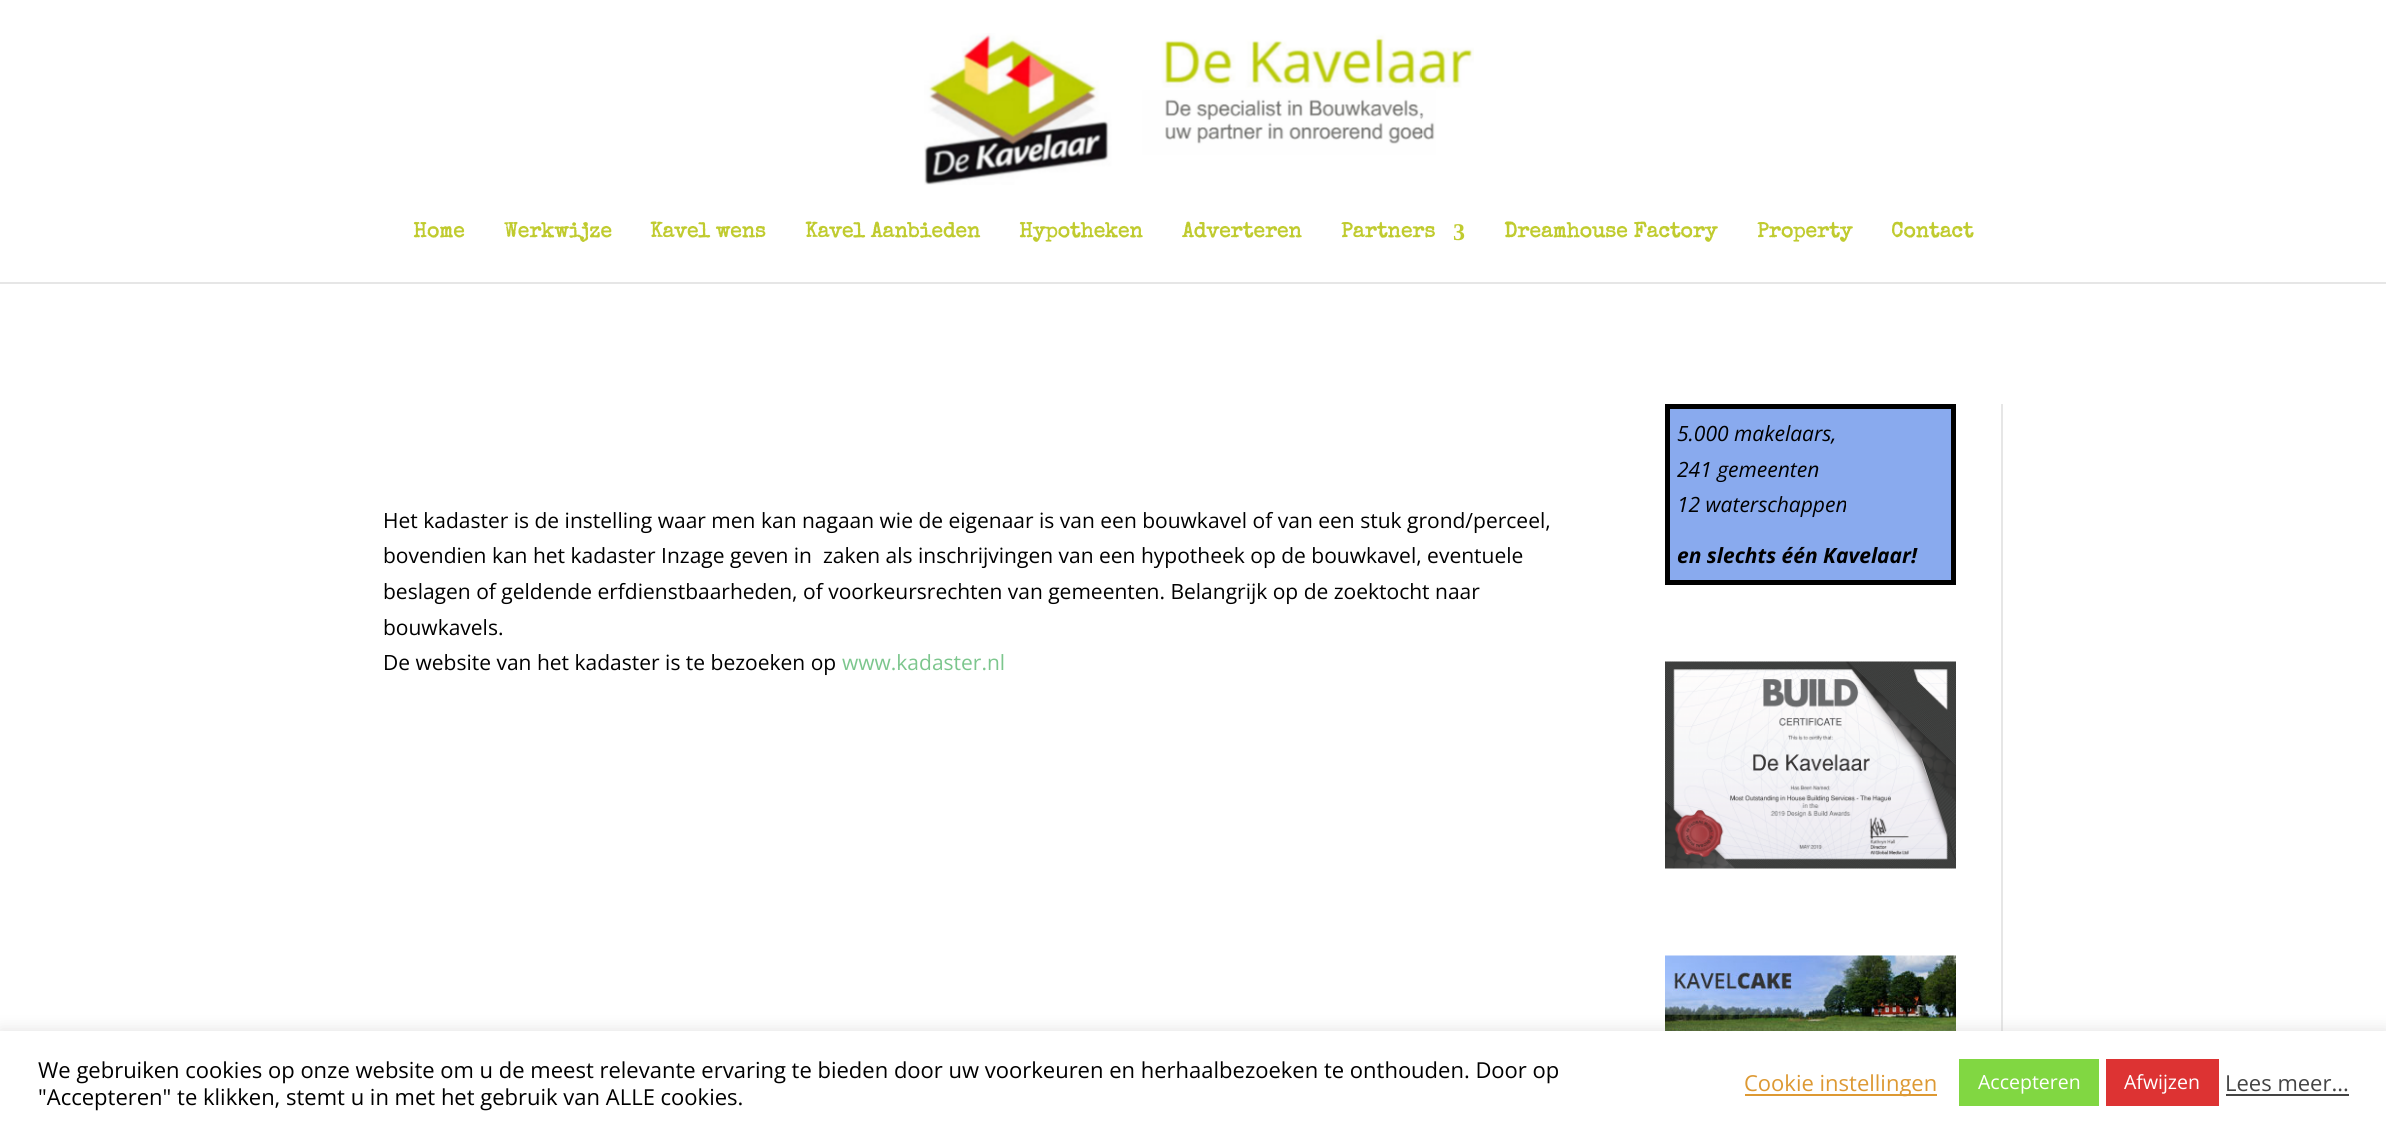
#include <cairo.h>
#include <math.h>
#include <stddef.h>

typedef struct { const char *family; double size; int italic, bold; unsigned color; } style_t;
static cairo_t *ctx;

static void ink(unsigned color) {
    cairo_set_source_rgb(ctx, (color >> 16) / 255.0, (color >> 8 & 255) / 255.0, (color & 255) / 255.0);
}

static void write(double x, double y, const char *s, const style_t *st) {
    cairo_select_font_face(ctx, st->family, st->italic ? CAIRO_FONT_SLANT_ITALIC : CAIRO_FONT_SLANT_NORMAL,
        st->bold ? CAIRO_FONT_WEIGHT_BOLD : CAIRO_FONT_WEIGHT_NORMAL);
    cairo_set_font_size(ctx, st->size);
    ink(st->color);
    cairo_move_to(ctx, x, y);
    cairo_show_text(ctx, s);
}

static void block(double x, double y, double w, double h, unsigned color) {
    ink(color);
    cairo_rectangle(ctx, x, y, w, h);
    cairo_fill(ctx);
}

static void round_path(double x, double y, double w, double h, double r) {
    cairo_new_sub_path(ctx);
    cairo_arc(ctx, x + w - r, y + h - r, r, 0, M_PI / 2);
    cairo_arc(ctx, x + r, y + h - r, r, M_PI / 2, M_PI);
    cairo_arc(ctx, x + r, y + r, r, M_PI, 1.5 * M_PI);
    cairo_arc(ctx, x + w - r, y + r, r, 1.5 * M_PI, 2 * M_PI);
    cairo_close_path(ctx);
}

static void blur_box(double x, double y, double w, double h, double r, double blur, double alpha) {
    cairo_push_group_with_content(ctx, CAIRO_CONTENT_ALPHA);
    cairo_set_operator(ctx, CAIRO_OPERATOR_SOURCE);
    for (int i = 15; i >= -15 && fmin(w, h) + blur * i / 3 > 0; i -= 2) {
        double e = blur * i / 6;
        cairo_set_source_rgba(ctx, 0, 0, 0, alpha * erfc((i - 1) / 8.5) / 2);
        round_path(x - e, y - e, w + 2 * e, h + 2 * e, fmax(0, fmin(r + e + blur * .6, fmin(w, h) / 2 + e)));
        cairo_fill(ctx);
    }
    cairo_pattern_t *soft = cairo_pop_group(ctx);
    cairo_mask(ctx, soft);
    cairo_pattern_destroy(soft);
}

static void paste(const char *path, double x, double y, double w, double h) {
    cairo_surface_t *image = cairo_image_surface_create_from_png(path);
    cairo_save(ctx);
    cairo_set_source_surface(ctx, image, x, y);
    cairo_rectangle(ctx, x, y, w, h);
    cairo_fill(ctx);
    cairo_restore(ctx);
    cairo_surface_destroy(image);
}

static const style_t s1 = {"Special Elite", 21, 0, 1, 0xc0cb2f};
static const style_t s2 = {"Liberation Serif", 24, 0, 1, 0xc0cb2f};
static const style_t s3 = {"Open Sans", 21, 1, 0, 0x000000};
static const style_t s4 = {"Open Sans", 21, 1, 1, 0x000000};
static const style_t s5 = {"Open Sans", 21, 0, 0, 0x000000};
static const style_t s6 = {"Open Sans", 21, 0, 0, 0x7cc68d};
static const style_t s7 = {"Open Sans", 22, 0, 0, 0x000000};
static const style_t s8 = {"Open Sans", 22, 0, 0, 0xdd9933};
static const style_t s9 = {"Open Sans", 19.5, 0, 0, 0xffffff};
static const style_t s10 = {"Open Sans", 22, 0, 0, 0x444444};

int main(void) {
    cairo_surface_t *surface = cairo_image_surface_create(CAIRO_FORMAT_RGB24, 2386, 1133);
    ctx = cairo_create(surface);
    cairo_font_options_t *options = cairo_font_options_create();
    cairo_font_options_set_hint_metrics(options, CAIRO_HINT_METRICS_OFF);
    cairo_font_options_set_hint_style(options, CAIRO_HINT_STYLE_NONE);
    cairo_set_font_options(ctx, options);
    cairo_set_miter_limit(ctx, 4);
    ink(0xffffff);
    cairo_paint(ctx);
    ink(0xe6e6e6);
    cairo_new_path(ctx);
    cairo_move_to(ctx, 0, 282);
    cairo_line_to(ctx, 0, 284);
    cairo_line_to(ctx, 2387, 284);
    cairo_line_to(ctx, 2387, 2);
    cairo_line_to(ctx, 2386, 2);
    cairo_line_to(ctx, 2386, 282);
    cairo_close_path(ctx);
    cairo_fill(ctx);
    paste("pic1.png", 924, 33, 550, 152);
    write(413, 237, "Home", &s1);
    write(504, 237, "Werkwijze", &s1);
    write(650, 237, "Kavel wens", &s1);
    write(805, 237, "Kavel Aanbieden", &s1);
    write(1019, 237, "Hypotheken", &s1);
    write(1182, 237, "Adverteren", &s1);
    write(1341, 237, "Partners", &s1);
    write(1453, 240, "3", &s2);
    write(1504, 237, "Dreamhouse Factory", &s1);
    write(1757, 237, "Property", &s1);
    write(1891, 237, "Contact", &s1);
    block(2001, 404, 2, 627, 0xe6e6e6);
    ink(0x89aaee);
    cairo_rectangle(ctx, 1667.5, 406.5, 286, 176);
    cairo_fill_preserve(ctx);
    ink(0x000000);
    cairo_set_line_width(ctx, 5);
    cairo_stroke(ctx);
    write(1677, 441, "5.000 makelaars,", &s3);
    write(1677, 477, "241 gemeenten", &s3);
    write(1677, 512, "12 waterschappen", &s3);
    write(1677, 563, "en slechts één Kavelaar!", &s4);
    paste("pic2.png", 1665, 661, 291, 208);
    paste("pic3.png", 1665, 955, 291, 76);
    write(383, 528, "Het kadaster is de instelling waar men kan nagaan wie de eigenaar is van een bouwkavel of van een stuk grond/perceel,", &s5);
    write(383, 563, "bovendien kan het kadaster Inzage geven in  zaken als inschrijvingen van een hypotheek op de bouwkavel, eventuele", &s5);
    write(383, 599, "beslagen of geldende erfdienstbaarheden, of voorkeursrechten van gemeenten. Belangrijk op de zoektocht naar", &s5);
    write(383, 635, "bouwkavels.", &s5);
    write(383, 670, "De website van het kadaster is te bezoeken op", &s5);
    write(842, 670, "www.kadaster.nl", &s6);
    ink(0xacabab);
    blur_box(0, 1029, 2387, 104, 0, 7.5, 0.3);
    block(0, 1031, 2386, 102, 0xffffff);
    write(38, 1078, "We gebruiken cookies op onze website om u de meest relevante ervaring te bieden door uw voorkeuren en herhaalbezoeken te onthouden. Door op", &s7);
    write(38, 1105, "\"Accepteren\" te klikken, stemt u in met het gebruik van ALLE cookies.", &s7);
    block(1745, 1094, 192, 2, 0xdd9933);
    write(1744, 1091, "Cookie instellingen", &s8);
    block(1959, 1059, 140, 47, 0x81d742);
    write(1978, 1089, "Accepteren", &s9);
    block(2106, 1059, 113, 47, 0xdd3333);
    write(2124, 1089, "Afwijzen", &s9);
    write(2225, 1091, "Lees meer...", &s10);
    block(2226, 1094, 123, 2, 0x444444);
    cairo_surface_write_to_png(surface, "screenshot.png");
    cairo_font_options_destroy(options);
    cairo_destroy(ctx);
    cairo_surface_destroy(surface);
    return 0;
}
